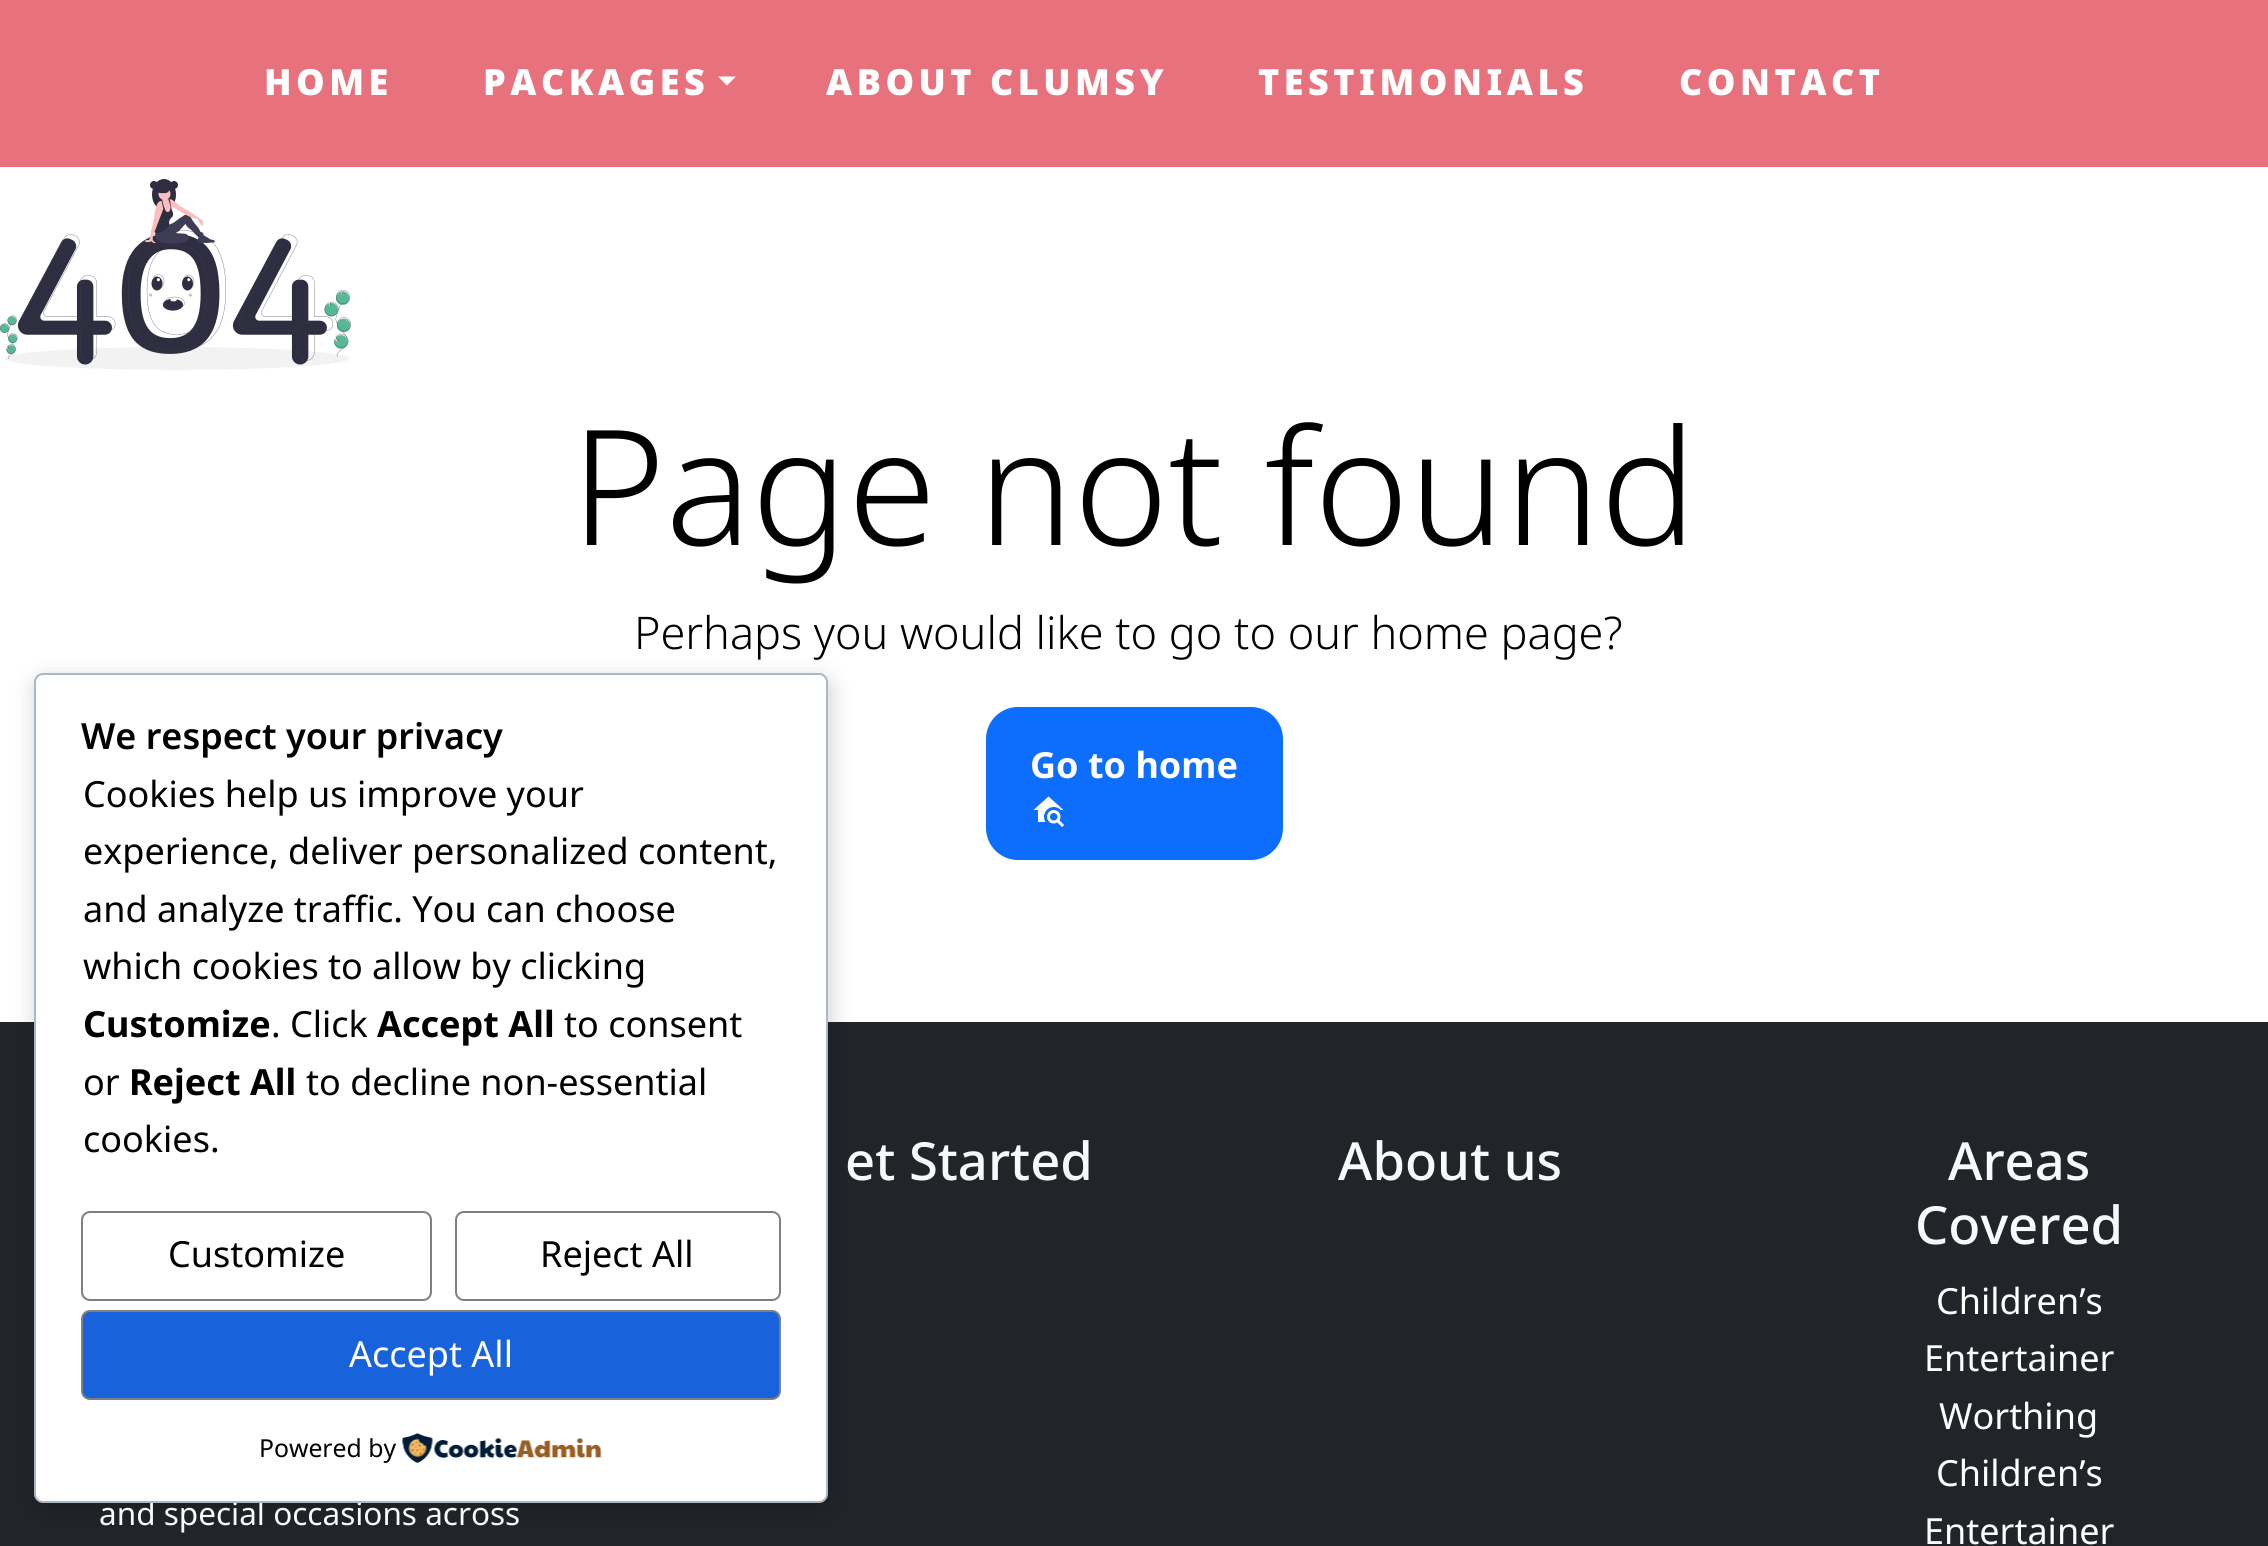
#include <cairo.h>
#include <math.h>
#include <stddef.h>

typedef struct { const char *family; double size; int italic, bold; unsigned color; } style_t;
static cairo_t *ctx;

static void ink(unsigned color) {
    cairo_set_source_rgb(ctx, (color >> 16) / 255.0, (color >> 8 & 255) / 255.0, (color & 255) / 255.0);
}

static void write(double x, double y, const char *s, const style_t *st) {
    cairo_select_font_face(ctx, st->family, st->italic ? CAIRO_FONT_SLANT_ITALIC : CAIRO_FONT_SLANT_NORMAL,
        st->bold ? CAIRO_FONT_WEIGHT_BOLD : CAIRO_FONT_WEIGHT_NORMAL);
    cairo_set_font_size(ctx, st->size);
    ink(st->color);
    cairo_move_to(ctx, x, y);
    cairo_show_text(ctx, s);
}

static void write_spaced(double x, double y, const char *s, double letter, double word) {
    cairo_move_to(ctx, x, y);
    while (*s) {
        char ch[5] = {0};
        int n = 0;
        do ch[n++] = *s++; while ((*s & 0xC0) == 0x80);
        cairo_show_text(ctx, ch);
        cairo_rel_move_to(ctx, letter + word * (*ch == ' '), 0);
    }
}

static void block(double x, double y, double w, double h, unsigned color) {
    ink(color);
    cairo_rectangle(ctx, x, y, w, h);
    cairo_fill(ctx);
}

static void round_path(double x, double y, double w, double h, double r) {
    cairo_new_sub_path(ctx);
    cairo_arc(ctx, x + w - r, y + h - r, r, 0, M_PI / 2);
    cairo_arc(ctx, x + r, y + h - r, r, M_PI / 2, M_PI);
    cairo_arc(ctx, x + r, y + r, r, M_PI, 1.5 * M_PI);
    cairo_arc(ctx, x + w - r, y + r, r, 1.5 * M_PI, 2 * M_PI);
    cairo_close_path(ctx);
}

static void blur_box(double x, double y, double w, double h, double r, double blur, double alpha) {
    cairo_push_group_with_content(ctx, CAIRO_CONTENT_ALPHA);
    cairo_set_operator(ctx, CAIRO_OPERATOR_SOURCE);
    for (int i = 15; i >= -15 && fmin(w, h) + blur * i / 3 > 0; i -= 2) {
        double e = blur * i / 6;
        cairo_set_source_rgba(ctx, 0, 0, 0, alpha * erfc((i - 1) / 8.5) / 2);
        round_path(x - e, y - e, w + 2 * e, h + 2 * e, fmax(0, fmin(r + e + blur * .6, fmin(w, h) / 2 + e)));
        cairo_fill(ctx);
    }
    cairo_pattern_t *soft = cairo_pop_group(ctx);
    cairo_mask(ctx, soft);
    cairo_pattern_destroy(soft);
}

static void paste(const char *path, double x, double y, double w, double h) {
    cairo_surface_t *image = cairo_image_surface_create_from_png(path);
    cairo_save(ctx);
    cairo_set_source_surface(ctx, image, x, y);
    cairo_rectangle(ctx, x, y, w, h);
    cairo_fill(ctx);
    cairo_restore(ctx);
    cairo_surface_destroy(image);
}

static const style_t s1 = {"Noto Sans Light", 160.5, 0, 0, 0x000000};
static const style_t s2 = {"Noto Sans Light", 45, 0, 0, 0x000000};
static const style_t s3 = {"Noto Sans", 36, 0, 1, 0xffffff};
static const style_t s4 = {"Noto Sans", 31.5, 0, 0, 0xf8f9fa};
static const style_t s5 = {"Noto Sans SemiBold", 36, 0, 0, 0x000000};
static const style_t s6 = {"Noto Sans", 36, 0, 0, 0x000000};
static const style_t s7 = {"Noto Sans", 36, 0, 1, 0x000000};
static const style_t s8 = {"Noto Sans", 36, 0, 0, 0xffffff};
static const style_t s9 = {"Noto Sans", 24.75, 0, 0, 0x000000};
static const style_t s10 = {"Noto Sans Medium", 52.5, 0, 0, 0xf8f9fa};

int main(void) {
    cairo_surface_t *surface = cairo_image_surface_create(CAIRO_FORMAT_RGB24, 2268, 1546);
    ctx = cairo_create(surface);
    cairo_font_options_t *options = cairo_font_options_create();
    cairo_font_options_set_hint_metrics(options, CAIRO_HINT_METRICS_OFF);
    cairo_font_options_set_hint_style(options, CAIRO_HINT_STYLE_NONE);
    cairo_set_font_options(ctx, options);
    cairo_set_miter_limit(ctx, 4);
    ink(0xffffff);
    cairo_paint(ctx);
    block(0, 0, 2268, 167, 0xe7727d);
    cairo_select_font_face(ctx, "Noto Sans Black", CAIRO_FONT_SLANT_NORMAL, CAIRO_FONT_WEIGHT_NORMAL);
    cairo_set_font_size(ctx, 36);
    ink(0xffffff);
    write_spaced(264, 95, "HOME", 4.5, 0);
    write_spaced(483, 95, "PACKAGES", 4.5, 0);
    cairo_new_path(ctx);
    cairo_move_to(ctx, 718, 76.5);
    cairo_line_to(ctx, 736, 76.5);
    cairo_line_to(ctx, 727, 85.5);
    cairo_close_path(ctx);
    cairo_fill(ctx);
    write_spaced(826, 95, "ABOUT CLUMSY", 4.5, 0);
    write_spaced(1258, 95, "TESTIMONIALS", 4.5, 0);
    write_spaced(1679, 95, "CONTACT", 4.5, 0);
    paste("pic1.png", 0, 179, 351, 191);
    write(571, 545, "Page not found", &s1);
    write(634, 649, "Perhaps you would like to go to our home page?", &s2);
    ink(0x0d6efd);
    round_path(986, 707, 297, 153, 32);
    cairo_fill(ctx);
    write(1030, 778, "Go to home", &s3);
    paste("pic2.png", 1033, 796, 31, 31);
    block(0, 1022, 2268, 524, 0x212529);
    ink(0x000000);
    blur_box(36, 680, 794, 830, 9, 11, 0.2);
    write(99, 1525, "and special occasions across", &s4);
    ink(0xffffff);
    round_path(35, 674, 792, 828, 8);
    cairo_fill_preserve(ctx);
    ink(0xabb8c3);
    cairo_stroke(ctx);
    write(81, 749, "We respect your privacy", &s5);
    write(83, 807, "Cookies help us improve your", &s6);
    write(83, 864, "experience, deliver personalized content,", &s6);
    write(83, 922, "and analyze traffic. You can choose", &s6);
    write(83, 979, "which cookies to allow by clicking", &s6);
    write(83, 1037, "Customize", &s7);
    write(271, 1037, ". Click", &s6);
    write(377, 1037, "Accept All", &s7);
    write(564, 1037, "to consent", &s6);
    write(83, 1095, "or", &s6);
    write(129, 1095, "Reject All", &s7);
    write(306, 1095, "to decline non-essential", &s6);
    write(83, 1152, "cookies.", &s6);
    round_path(82, 1212, 349, 88, 8);
    ink(0x808080);
    cairo_stroke(ctx);
    write(168, 1267, "Customize", &s6);
    round_path(456, 1212, 324, 88, 8);
    ink(0x808080);
    cairo_stroke(ctx);
    write(540, 1267, "Reject All", &s6);
    ink(0x1863dc);
    round_path(82, 1311, 698, 88, 8);
    cairo_fill_preserve(ctx);
    ink(0x808080);
    cairo_stroke(ctx);
    write(349, 1367, "Accept All", &s8);
    write(259, 1457, "Powered by", &s9);
    paste("pic3.png", 402, 1433, 200, 30);
    write(845, 1180, "et Started", &s10);
    write(1338, 1180, "About us", &s10);
    write(1948, 1180, "Areas", &s10);
    write(1915, 1244, "Covered", &s10);
    write(1936, 1314, "Children’s", &s8);
    write(1924, 1371, "Entertainer", &s8);
    write(1939, 1429, "Worthing", &s8);
    write(1936, 1486, "Children’s", &s8);
    write(1924, 1544, "Entertainer", &s8);
    cairo_surface_write_to_png(surface, "screenshot.png");
    cairo_font_options_destroy(options);
    cairo_destroy(ctx);
    cairo_surface_destroy(surface);
    return 0;
}
